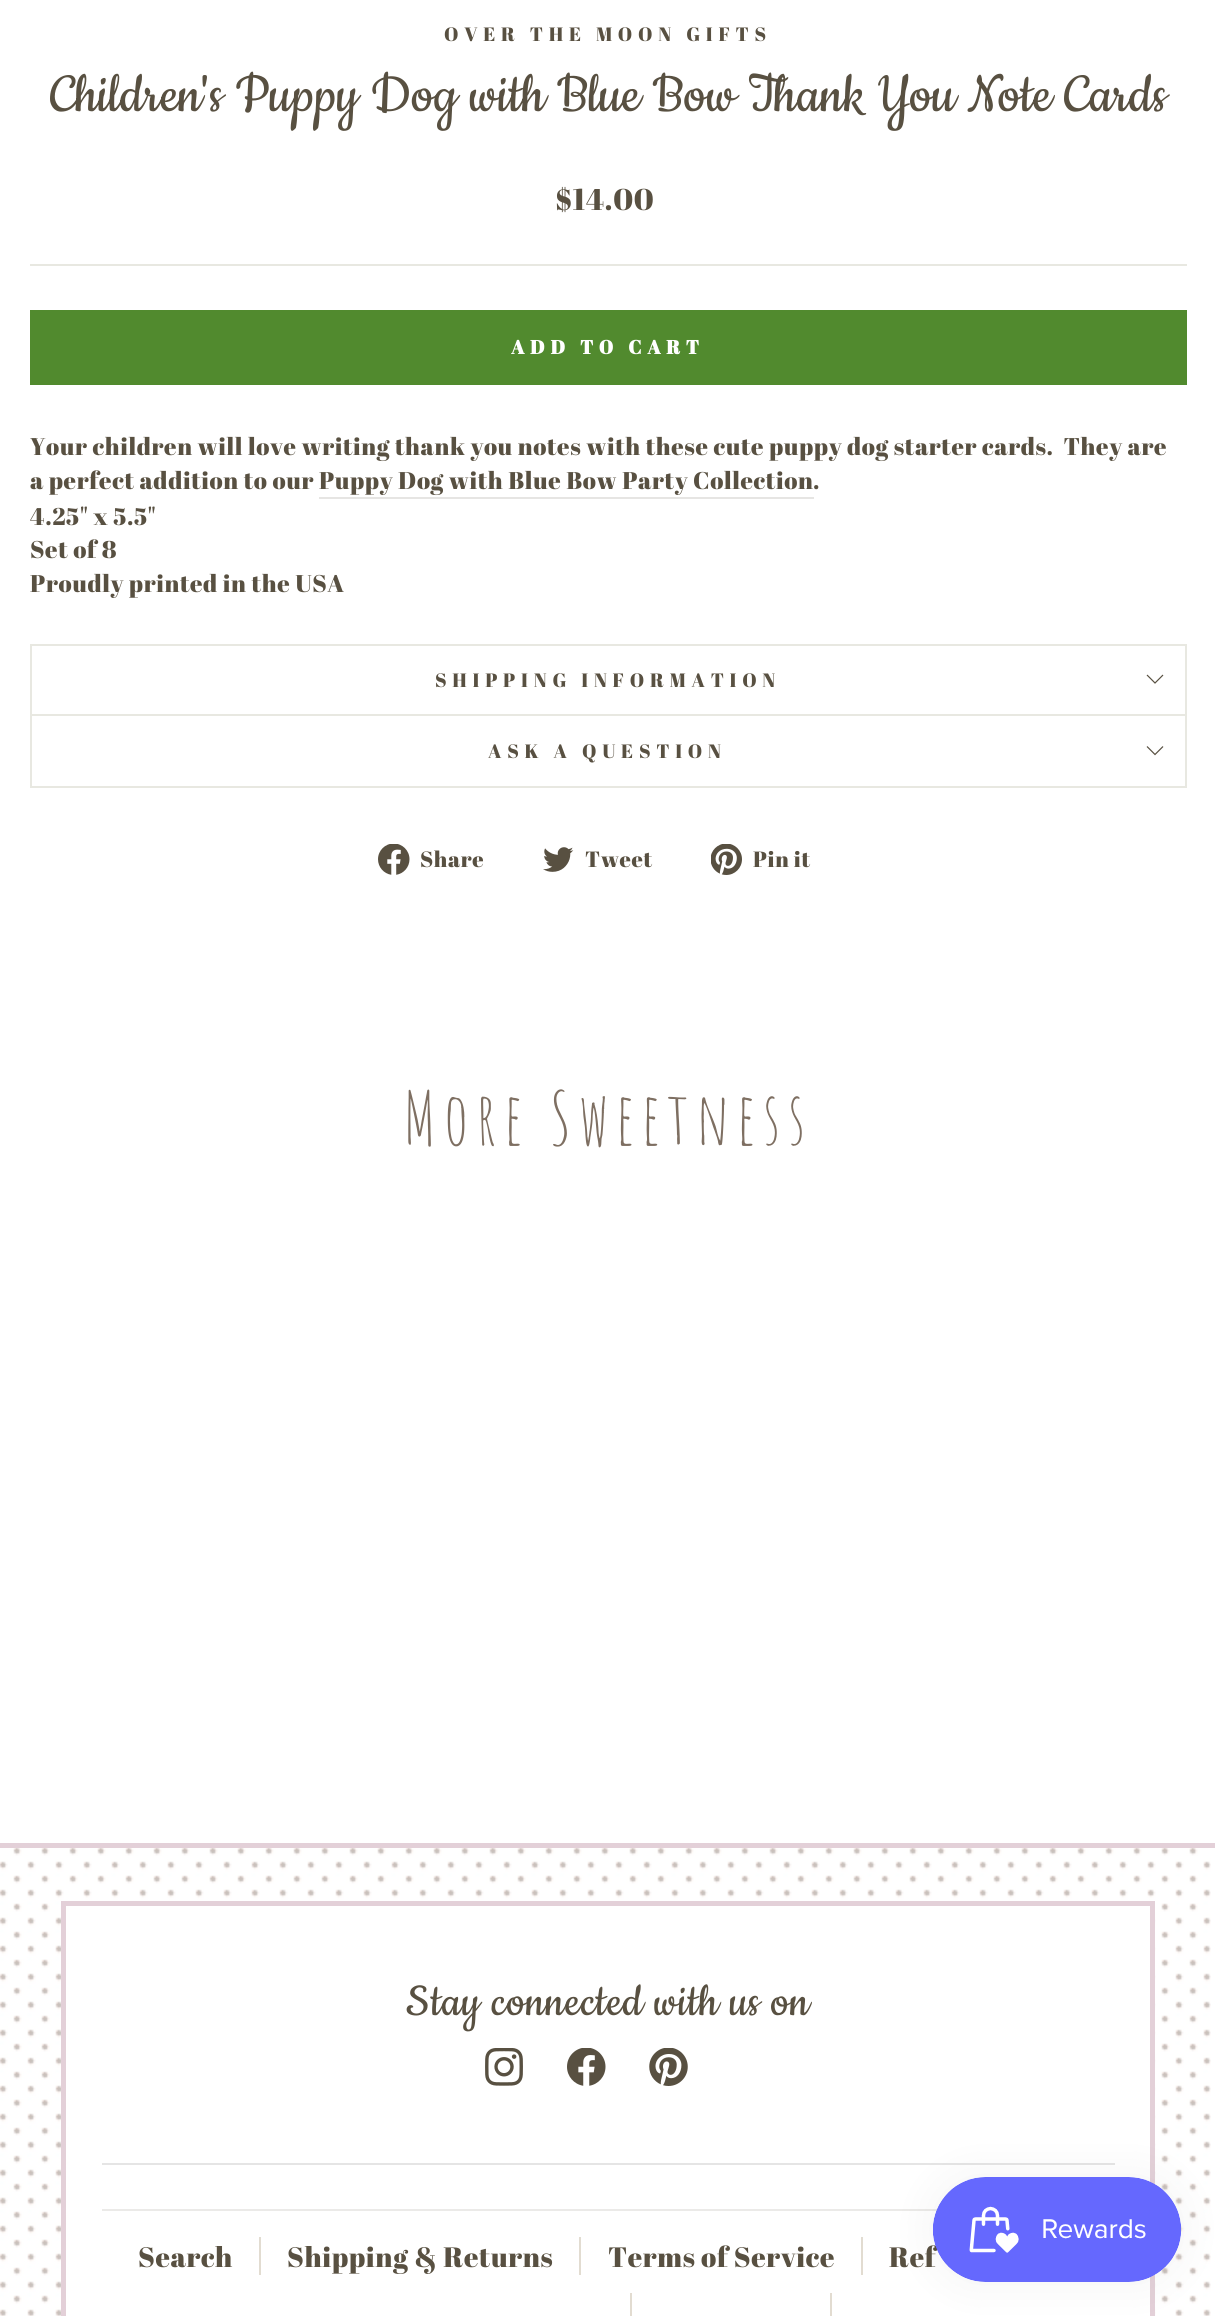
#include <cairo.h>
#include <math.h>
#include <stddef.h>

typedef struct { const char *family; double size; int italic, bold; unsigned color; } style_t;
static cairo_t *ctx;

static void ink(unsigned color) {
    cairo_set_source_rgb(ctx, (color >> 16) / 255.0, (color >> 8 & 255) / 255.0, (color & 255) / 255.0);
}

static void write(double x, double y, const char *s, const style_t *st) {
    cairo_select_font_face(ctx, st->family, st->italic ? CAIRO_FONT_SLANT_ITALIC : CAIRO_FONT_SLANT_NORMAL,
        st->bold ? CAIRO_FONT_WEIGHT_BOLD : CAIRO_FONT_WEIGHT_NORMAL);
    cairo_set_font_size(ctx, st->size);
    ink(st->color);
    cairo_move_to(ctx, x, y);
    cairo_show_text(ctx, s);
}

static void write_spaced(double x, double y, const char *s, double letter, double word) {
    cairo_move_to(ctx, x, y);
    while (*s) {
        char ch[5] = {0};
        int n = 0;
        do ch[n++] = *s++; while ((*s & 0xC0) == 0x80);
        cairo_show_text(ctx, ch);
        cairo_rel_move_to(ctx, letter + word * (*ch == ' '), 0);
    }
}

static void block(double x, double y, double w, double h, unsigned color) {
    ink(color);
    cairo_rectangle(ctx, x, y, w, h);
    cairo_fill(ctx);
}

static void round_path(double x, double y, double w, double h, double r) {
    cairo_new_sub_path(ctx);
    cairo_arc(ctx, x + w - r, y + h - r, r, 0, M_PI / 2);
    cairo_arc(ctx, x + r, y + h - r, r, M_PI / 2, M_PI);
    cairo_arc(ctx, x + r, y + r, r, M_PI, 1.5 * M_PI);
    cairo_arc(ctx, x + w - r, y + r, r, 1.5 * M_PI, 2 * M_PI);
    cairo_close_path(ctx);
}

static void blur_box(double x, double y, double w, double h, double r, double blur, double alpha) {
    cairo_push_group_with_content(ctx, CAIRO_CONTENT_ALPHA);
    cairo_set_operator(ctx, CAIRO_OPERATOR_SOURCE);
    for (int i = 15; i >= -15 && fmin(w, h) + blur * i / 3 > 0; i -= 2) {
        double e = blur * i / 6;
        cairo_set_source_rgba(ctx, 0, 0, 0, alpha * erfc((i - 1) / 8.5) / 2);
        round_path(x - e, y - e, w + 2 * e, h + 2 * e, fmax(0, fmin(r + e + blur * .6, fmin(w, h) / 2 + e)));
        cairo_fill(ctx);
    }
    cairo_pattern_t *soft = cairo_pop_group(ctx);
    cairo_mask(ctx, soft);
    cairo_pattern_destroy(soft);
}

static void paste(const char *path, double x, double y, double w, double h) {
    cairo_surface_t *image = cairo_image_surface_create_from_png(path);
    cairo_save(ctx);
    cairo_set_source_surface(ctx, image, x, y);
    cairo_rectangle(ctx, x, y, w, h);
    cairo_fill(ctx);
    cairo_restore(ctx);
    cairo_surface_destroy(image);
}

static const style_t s1 = {"Cookie", 62.1, 0, 0, 0x585041};

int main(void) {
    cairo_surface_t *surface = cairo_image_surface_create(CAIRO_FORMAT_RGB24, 1215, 2316);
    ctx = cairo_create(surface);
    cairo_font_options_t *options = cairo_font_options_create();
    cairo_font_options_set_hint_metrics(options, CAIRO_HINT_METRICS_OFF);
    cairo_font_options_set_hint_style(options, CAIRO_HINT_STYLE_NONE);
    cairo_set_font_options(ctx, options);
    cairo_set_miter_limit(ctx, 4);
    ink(0xffffff);
    cairo_paint(ctx);
    cairo_select_font_face(ctx, "Abril Fatface", CAIRO_FONT_SLANT_NORMAL, CAIRO_FONT_WEIGHT_NORMAL);
    cairo_set_font_size(ctx, 19.3);
    ink(0x585041);
    write_spaced(444, 41, "OVER THE MOON GIFTS", 5.75, 0);
    write(50, 111, "Children's Puppy Dog with Blue Bow Thank You Note Cards", &s1);
    cairo_select_font_face(ctx, "Abril Fatface", CAIRO_FONT_SLANT_NORMAL, CAIRO_FONT_WEIGHT_NORMAL);
    cairo_set_font_size(ctx, 30);
    write_spaced(555, 210, "$14.00", 0.6, 0);
    block(30, 264, 1157, 2, 0xe8e8e1);
    block(30, 310, 1157, 75, 0x518a2e);
    cairo_select_font_face(ctx, "Abril Fatface", CAIRO_FONT_SLANT_NORMAL, CAIRO_FONT_WEIGHT_BOLD);
    cairo_set_font_size(ctx, 19.25);
    ink(0xffffff);
    write_spaced(511, 354, "ADD TO CART", 5.75, 0);
    cairo_select_font_face(ctx, "Abril Fatface", CAIRO_FONT_SLANT_NORMAL, CAIRO_FONT_WEIGHT_NORMAL);
    cairo_set_font_size(ctx, 24.15);
    ink(0x585041);
    write_spaced(30, 455, "Your children will love writing thank you notes with these cute puppy dog starter cards.  They are", 0.6, 0);
    write_spaced(30, 489, "a perfect addition to our Puppy Dog with Blue Bow Party Collection", 0.6, 0);
    write_spaced(813, 489, ".", 0.6, 0);
    block(319, 497, 495, 2, 0xe6e5e3);
    ink(0x585041);
    write_spaced(30, 525, "4.25\" x 5.5\"", 0.6, 0);
    write_spaced(30, 558, "Set of 8", 0.6, 0);
    write_spaced(30, 592, "Proudly printed in the USA", 0.6, 0);
    block(30, 714, 1157, 2, 0xe8e8e1);
    block(30, 644, 1157, 2, 0xe8e8e1);
    block(1185, 644, 2, 70, 0xe8e8e1);
    block(30, 644, 2, 70, 0xe8e8e1);
    cairo_set_font_size(ctx, 19.3);
    ink(0x585041);
    write_spaced(435, 687, "SHIPPING INFORMATION", 5.75, 0);
    cairo_new_path(ctx);
    cairo_move_to(ctx, 1147, 675);
    cairo_line_to(ctx, 1155, 683);
    cairo_line_to(ctx, 1163, 675);
    cairo_set_line_width(ctx, 1.2);
    cairo_stroke(ctx);
    block(30, 786, 1157, 2, 0xe8e8e1);
    block(1185, 716, 2, 70, 0xe8e8e1);
    block(30, 716, 2, 70, 0xe8e8e1);
    ink(0x585041);
    write_spaced(488, 758, "ASK A QUESTION", 5.75, 0);
    cairo_new_path(ctx);
    cairo_move_to(ctx, 1147, 746.5);
    cairo_line_to(ctx, 1155, 754.5);
    cairo_line_to(ctx, 1163, 746.5);
    cairo_stroke(ctx);
    paste("pic1.png", 378, 844, 32, 31);
    cairo_set_font_size(ctx, 22);
    write_spaced(420, 867, "Share", 0.6, 0);
    paste("pic2.png", 543, 847, 31, 25);
    write_spaced(585, 867, "Tweet", 0.6, 0);
    paste("pic3.png", 711, 844, 31, 31);
    write_spaced(753, 867, "Pin it", 0.6, 0);
    cairo_select_font_face(ctx, "Amatic SC", CAIRO_FONT_SLANT_NORMAL, CAIRO_FONT_WEIGHT_NORMAL);
    cairo_set_font_size(ctx, 72.5);
    ink(0x7e6f62);
    write_spaced(403, 1145, "More Sweetness", 7.25, 0);
    paste("pic4.png", 0, 1848, 1211, 468);
    block(0, 1843, 1215, 5, 0xe3d0d8);
    block(69, 1906, 1081, 410, 0xffffff);
    cairo_rectangle(ctx, 63.5, 1903.5, 1089, 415);
    ink(0xe3d0d8);
    cairo_set_line_width(ctx, 5);
    cairo_stroke(ctx);
    block(102, 2163, 1013, 2, 0xe5e5e5);
    cairo_select_font_face(ctx, "Cookie", CAIRO_FONT_SLANT_NORMAL, CAIRO_FONT_WEIGHT_NORMAL);
    cairo_set_font_size(ctx, 51.25);
    ink(0x585041);
    write_spaced(406, 2015, "Stay connected with us on", 0.6, 0);
    paste("pic5.png", 485, 2048, 38, 38);
    paste("pic6.png", 567, 2048, 39, 38);
    paste("pic7.png", 649, 2048, 39, 38);
    block(102, 2209, 835, 2, 0xebeae8);
    block(259, 2237, 2, 38, 0xe2dcd1);
    cairo_select_font_face(ctx, "Abril Fatface", CAIRO_FONT_SLANT_NORMAL, CAIRO_FONT_WEIGHT_NORMAL);
    cairo_set_font_size(ctx, 28);
    ink(0x585041);
    write_spaced(138, 2267, "Search", 0.6, 0);
    block(579, 2237, 2, 38, 0xe2dcd1);
    ink(0x585041);
    write_spaced(287, 2267, "Shipping & Returns", 0.6, 0);
    block(861, 2237, 2, 38, 0xe2dcd1);
    ink(0x585041);
    write_spaced(608, 2267, "Terms of Service", 0.6, 0);
    write_spaced(889, 2267, "Ref", 0.6, 0);
    block(630, 2293, 2, 23, 0xe2dcd1);
    block(830, 2293, 2, 23, 0xe2dcd1);
    ink(0x000000);
    blur_box(933, 2177, 248, 105, 52.5, 22, 0.05);
    paste("pic8.png", 933, 2177, 248, 105);
    cairo_surface_write_to_png(surface, "screenshot.png");
    cairo_font_options_destroy(options);
    cairo_destroy(ctx);
    cairo_surface_destroy(surface);
    return 0;
}
